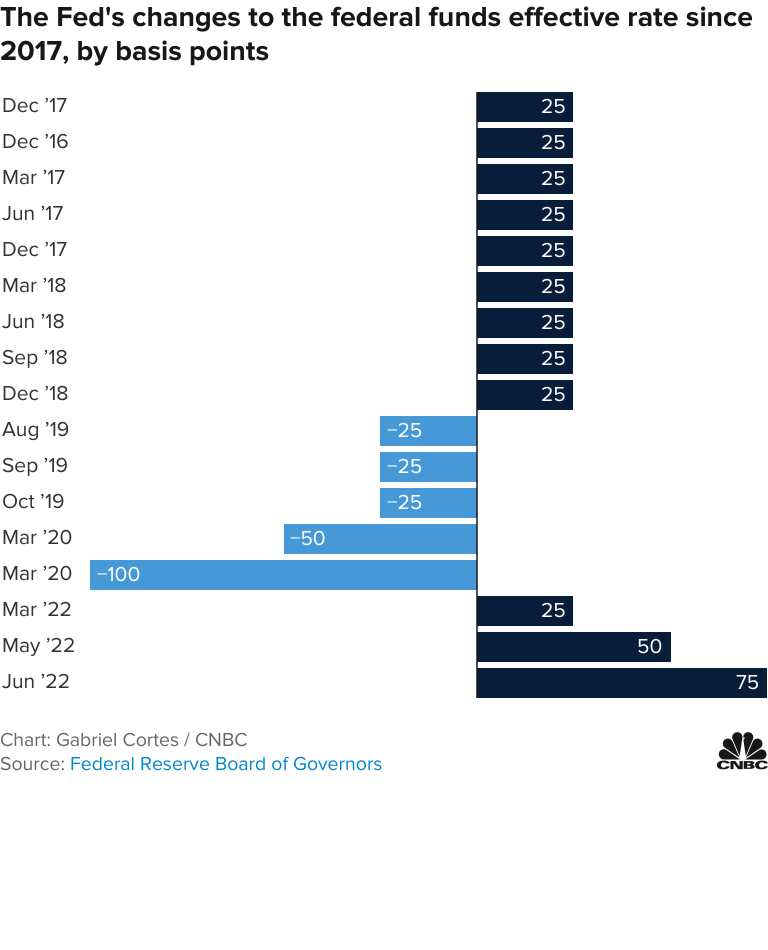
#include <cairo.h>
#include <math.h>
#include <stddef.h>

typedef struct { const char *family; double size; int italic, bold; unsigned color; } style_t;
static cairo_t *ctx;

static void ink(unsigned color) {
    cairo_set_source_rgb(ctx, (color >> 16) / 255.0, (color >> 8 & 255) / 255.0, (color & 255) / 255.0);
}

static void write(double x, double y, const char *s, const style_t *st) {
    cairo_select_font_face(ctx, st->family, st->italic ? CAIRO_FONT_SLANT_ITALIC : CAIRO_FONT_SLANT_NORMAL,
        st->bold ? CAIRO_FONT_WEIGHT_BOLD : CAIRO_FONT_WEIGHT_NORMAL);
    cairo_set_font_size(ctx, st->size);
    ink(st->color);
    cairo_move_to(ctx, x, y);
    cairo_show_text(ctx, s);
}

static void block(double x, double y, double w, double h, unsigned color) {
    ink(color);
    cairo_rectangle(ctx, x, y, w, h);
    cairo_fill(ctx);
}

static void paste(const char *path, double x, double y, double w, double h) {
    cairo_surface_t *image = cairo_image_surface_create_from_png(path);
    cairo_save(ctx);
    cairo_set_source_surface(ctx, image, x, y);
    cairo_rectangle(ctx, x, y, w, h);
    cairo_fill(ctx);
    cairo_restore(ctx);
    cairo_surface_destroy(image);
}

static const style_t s1 = {"Proxima Nova", 28.5, 0, 1, 0x171717};
static const style_t s2 = {"Proxima Nova", 21, 0, 0, 0x333333};
static const style_t s3 = {"Proxima Nova", 21, 0, 0, 0xffffff};
static const style_t s4 = {"Proxima Nova", 19.5, 0, 0, 0x666666};
static const style_t s5 = {"Proxima Nova", 19.5, 0, 0, 0x0088cc};

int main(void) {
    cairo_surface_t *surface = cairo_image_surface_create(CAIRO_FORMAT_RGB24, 768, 950);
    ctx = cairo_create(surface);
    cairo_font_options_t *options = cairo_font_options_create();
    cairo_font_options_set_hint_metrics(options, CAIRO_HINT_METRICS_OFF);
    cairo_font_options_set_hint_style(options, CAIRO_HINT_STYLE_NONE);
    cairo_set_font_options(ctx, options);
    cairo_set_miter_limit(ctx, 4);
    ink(0xffffff);
    cairo_paint(ctx);
    block(476, 92, 2, 606, 0x515151);
    write(0, 26, "The Fed's changes to the federal funds effective rate since", &s1);
    write(0, 60, "2017, by basis points", &s1);
    write(2, 112, "Dec ’17", &s2);
    block(478, 92, 95, 30, 0x071d39);
    block(477, 92, 1, 30, 0x131920);
    write(541, 113, "25", &s3);
    write(2, 148, "Dec ’16", &s2);
    block(478, 128, 95, 30, 0x071d39);
    block(477, 128, 1, 30, 0x131920);
    write(541, 149, "25", &s3);
    write(2, 184, "Mar ’17", &s2);
    block(478, 164, 95, 30, 0x071d39);
    block(477, 164, 1, 30, 0x131920);
    write(541, 185, "25", &s3);
    write(2, 220, "Jun ’17", &s2);
    block(478, 200, 95, 30, 0x071d39);
    block(477, 200, 1, 30, 0x131920);
    write(541, 221, "25", &s3);
    write(2, 256, "Dec ’17", &s2);
    block(478, 236, 95, 30, 0x071d39);
    block(477, 236, 1, 30, 0x131920);
    write(541, 257, "25", &s3);
    write(2, 292, "Mar ’18", &s2);
    block(478, 272, 95, 30, 0x071d39);
    block(477, 272, 1, 30, 0x131920);
    write(541, 293, "25", &s3);
    write(2, 328, "Jun ’18", &s2);
    block(478, 308, 95, 30, 0x071d39);
    block(477, 308, 1, 30, 0x131920);
    write(541, 329, "25", &s3);
    write(2, 364, "Sep ’18", &s2);
    block(478, 344, 95, 30, 0x071d39);
    block(477, 344, 1, 30, 0x131920);
    write(541, 365, "25", &s3);
    write(2, 400, "Dec ’18", &s2);
    block(478, 380, 95, 30, 0x071d39);
    block(477, 380, 1, 30, 0x131920);
    write(541, 401, "25", &s3);
    write(2, 436, "Aug ’19", &s2);
    block(380, 416, 96, 30, 0x4699d6);
    block(476, 416, 1, 30, 0x233847);
    write(387, 437, "−25", &s3);
    write(2, 472, "Sep ’19", &s2);
    block(380, 452, 96, 30, 0x4699d6);
    block(476, 452, 1, 30, 0x233847);
    write(387, 473, "−25", &s3);
    write(2, 508, "Oct ’19", &s2);
    block(380, 488, 96, 30, 0x4699d6);
    block(476, 488, 1, 30, 0x233847);
    write(387, 509, "−25", &s3);
    write(2, 544, "Mar ’20", &s2);
    block(284, 524, 192, 30, 0x4699d6);
    block(476, 524, 1, 30, 0x233847);
    write(290, 545, "−50", &s3);
    write(2, 580, "Mar ’20", &s2);
    block(90, 560, 386, 30, 0x4699d6);
    block(476, 560, 1, 30, 0x233847);
    write(97, 581, "−100", &s3);
    write(2, 616, "Mar ’22", &s2);
    block(478, 596, 95, 30, 0x071d39);
    block(477, 596, 1, 30, 0x131920);
    write(541, 617, "25", &s3);
    write(2, 652, "May ’22", &s2);
    block(478, 632, 193, 30, 0x071d39);
    block(477, 632, 1, 30, 0x131920);
    write(637, 653, "50", &s3);
    write(2, 688, "Jun ’22", &s2);
    block(478, 668, 289, 30, 0x071d39);
    block(477, 668, 1, 30, 0x131920);
    write(736, 689, "75", &s3);
    write(0, 746, "Chart: Gabriel Cortes / CNBC", &s4);
    write(0, 770, "Source:", &s4);
    write(70, 770, "Federal Reserve Board of Governors", &s5);
    paste("pic1.png", 717, 732, 51, 38);
    cairo_surface_write_to_png(surface, "screenshot.png");
    cairo_font_options_destroy(options);
    cairo_destroy(ctx);
    cairo_surface_destroy(surface);
    return 0;
}
